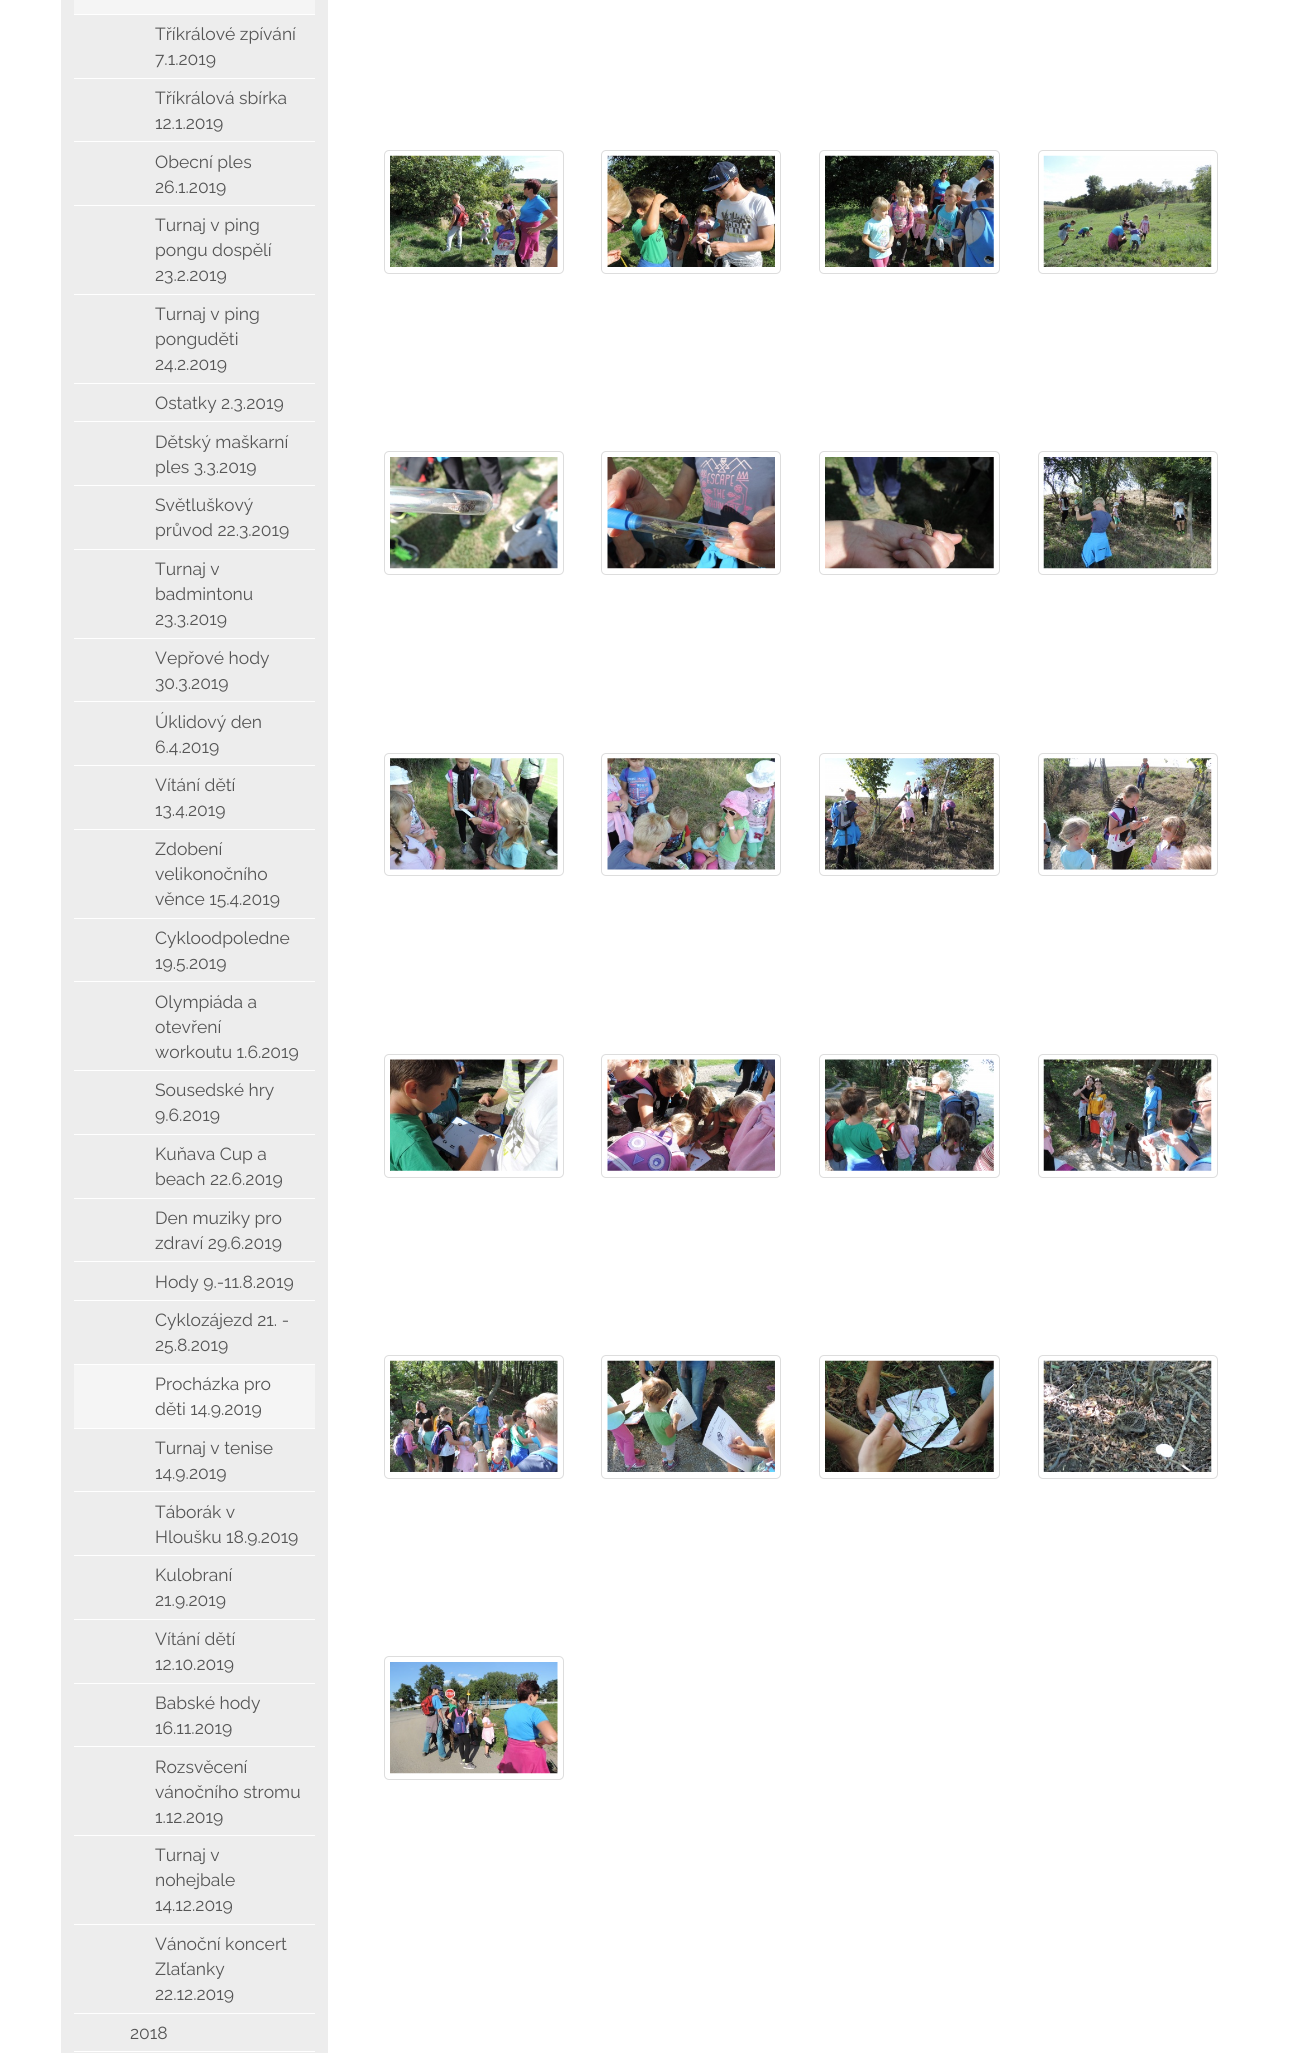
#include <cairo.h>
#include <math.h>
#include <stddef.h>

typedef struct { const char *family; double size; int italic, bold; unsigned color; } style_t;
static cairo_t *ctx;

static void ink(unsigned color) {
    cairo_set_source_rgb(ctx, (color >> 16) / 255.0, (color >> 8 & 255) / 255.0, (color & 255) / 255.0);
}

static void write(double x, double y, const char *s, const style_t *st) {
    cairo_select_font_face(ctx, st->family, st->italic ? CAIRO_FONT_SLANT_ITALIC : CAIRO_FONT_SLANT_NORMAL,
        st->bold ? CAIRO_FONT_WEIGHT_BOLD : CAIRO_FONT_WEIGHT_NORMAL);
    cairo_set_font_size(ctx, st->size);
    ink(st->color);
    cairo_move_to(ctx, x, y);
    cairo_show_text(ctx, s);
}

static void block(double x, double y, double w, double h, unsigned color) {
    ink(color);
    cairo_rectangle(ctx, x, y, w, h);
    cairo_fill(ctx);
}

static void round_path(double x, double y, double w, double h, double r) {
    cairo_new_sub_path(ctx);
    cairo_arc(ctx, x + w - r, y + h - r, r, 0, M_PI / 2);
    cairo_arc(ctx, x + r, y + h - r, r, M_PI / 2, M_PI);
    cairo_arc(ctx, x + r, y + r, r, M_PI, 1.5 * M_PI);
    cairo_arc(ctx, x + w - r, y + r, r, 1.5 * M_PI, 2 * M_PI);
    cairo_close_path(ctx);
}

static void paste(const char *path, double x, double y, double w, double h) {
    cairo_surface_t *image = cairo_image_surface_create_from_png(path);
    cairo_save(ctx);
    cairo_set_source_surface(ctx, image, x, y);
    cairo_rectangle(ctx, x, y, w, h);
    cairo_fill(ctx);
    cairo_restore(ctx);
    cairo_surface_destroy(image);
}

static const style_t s1 = {"Raleway", 17.5, 0, 0, 0x555555};

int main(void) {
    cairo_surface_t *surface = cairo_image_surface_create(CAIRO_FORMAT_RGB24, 1297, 2053);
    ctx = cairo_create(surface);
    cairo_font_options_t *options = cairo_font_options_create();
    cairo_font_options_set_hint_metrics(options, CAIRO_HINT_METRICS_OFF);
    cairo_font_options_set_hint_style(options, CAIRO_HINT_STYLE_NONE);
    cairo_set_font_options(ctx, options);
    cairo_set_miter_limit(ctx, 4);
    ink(0xffffff);
    cairo_paint(ctx);
    block(61, 0, 267, 2053, 0xededed);
    block(74, 0, 241, 14, 0xf5f5f5);
    block(74, 14, 241, 1, 0xffffff);
    block(74, 78, 241, 1, 0xffffff);
    write(155, 40, "Tříkrálové zpívání", &s1);
    write(155, 65, "7.1.2019", &s1);
    block(74, 141, 241, 1, 0xffffff);
    write(155, 104, "Tříkrálová sbírka", &s1);
    write(155, 129, "12.1.2019", &s1);
    block(74, 205, 241, 1, 0xffffff);
    write(155, 168, "Obecní ples", &s1);
    write(155, 193, "26.1.2019", &s1);
    block(74, 294, 241, 1, 0xffffff);
    write(155, 231, "Turnaj v ping", &s1);
    write(155, 256, "pongu dospělí", &s1);
    write(155, 281, "23.2.2019", &s1);
    block(74, 383, 241, 1, 0xffffff);
    write(155, 320, "Turnaj v ping", &s1);
    write(155, 345, "ponguděti", &s1);
    write(155, 370, "24.2.2019", &s1);
    block(74, 421, 241, 1, 0xffffff);
    write(155, 409, "Ostatky 2.3.2019", &s1);
    block(74, 485, 241, 1, 0xffffff);
    write(155, 448, "Dětský maškarní", &s1);
    write(155, 473, "ples 3.3.2019", &s1);
    block(74, 549, 241, 1, 0xffffff);
    write(155, 511, "Světluškový", &s1);
    write(155, 536, "průvod 22.3.2019", &s1);
    block(74, 638, 241, 1, 0xffffff);
    write(155, 575, "Turnaj v", &s1);
    write(155, 600, "badmintonu", &s1);
    write(155, 625, "23.3.2019", &s1);
    block(74, 701, 241, 1, 0xffffff);
    write(155, 664, "Vepřové hody", &s1);
    write(155, 689, "30.3.2019", &s1);
    block(74, 765, 241, 1, 0xffffff);
    write(155, 728, "Úklidový den", &s1);
    write(155, 753, "6.4.2019", &s1);
    block(74, 829, 241, 1, 0xffffff);
    write(155, 791, "Vítání dětí", &s1);
    write(155, 816, "13.4.2019", &s1);
    block(74, 918, 241, 1, 0xffffff);
    write(155, 855, "Zdobení", &s1);
    write(155, 880, "velikonočního", &s1);
    write(155, 905, "věnce 15.4.2019", &s1);
    block(74, 981, 241, 1, 0xffffff);
    write(155, 944, "Cykloodpoledne", &s1);
    write(155, 969, "19.5.2019", &s1);
    block(74, 1070, 241, 1, 0xffffff);
    write(155, 1008, "Olympiáda a", &s1);
    write(155, 1033, "otevření", &s1);
    write(155, 1058, "workoutu 1.6.2019", &s1);
    block(74, 1134, 241, 1, 0xffffff);
    write(155, 1096, "Sousedské hry", &s1);
    write(155, 1121, "9.6.2019", &s1);
    block(74, 1198, 241, 1, 0xffffff);
    write(155, 1160, "Kuňava Cup a", &s1);
    write(155, 1185, "beach 22.6.2019", &s1);
    block(74, 1261, 241, 1, 0xffffff);
    write(155, 1224, "Den muziky pro", &s1);
    write(155, 1249, "zdraví 29.6.2019", &s1);
    block(74, 1300, 241, 1, 0xffffff);
    write(155, 1288, "Hody 9.-11.8.2019", &s1);
    block(74, 1364, 241, 1, 0xffffff);
    write(155, 1326, "Cyklozájezd 21. -", &s1);
    write(155, 1351, "25.8.2019", &s1);
    block(74, 1365, 241, 63, 0xf5f5f5);
    block(74, 1428, 241, 1, 0xffffff);
    write(155, 1390, "Procházka pro", &s1);
    write(155, 1415, "děti 14.9.2019", &s1);
    block(74, 1491, 241, 1, 0xffffff);
    write(155, 1454, "Turnaj v tenise", &s1);
    write(155, 1479, "14.9.2019", &s1);
    block(74, 1555, 241, 1, 0xffffff);
    write(155, 1518, "Táborák v", &s1);
    write(155, 1543, "Hloušku 18.9.2019", &s1);
    block(74, 1619, 241, 1, 0xffffff);
    write(155, 1581, "Kulobraní", &s1);
    write(155, 1606, "21.9.2019", &s1);
    block(74, 1683, 241, 1, 0xffffff);
    write(155, 1645, "Vítání dětí", &s1);
    write(155, 1670, "12.10.2019", &s1);
    block(74, 1746, 241, 1, 0xffffff);
    write(155, 1709, "Babské hody", &s1);
    write(155, 1734, "16.11.2019", &s1);
    block(74, 1835, 241, 1, 0xffffff);
    write(155, 1773, "Rozsvěcení", &s1);
    write(155, 1798, "vánočního stromu", &s1);
    write(155, 1823, "1.12.2019", &s1);
    block(74, 1924, 241, 1, 0xffffff);
    write(155, 1861, "Turnaj v", &s1);
    write(155, 1886, "nohejbale", &s1);
    write(155, 1911, "14.12.2019", &s1);
    block(74, 2013, 241, 1, 0xffffff);
    write(155, 1950, "Vánoční koncert", &s1);
    write(155, 1975, "Zlaťanky", &s1);
    write(155, 2000, "22.12.2019", &s1);
    block(74, 2051, 241, 1, 0xffffff);
    write(130, 2039, "2018", &s1);
    round_path(384.5, 150.5, 179, 123, 4.5);
    ink(0xdddddd);
    cairo_set_line_width(ctx, 1);
    cairo_stroke(ctx);
    paste("pic1.png", 390, 155, 168, 112);
    round_path(601.5, 150.5, 179, 123, 4.5);
    cairo_stroke(ctx);
    paste("pic2.png", 607, 155, 168, 112);
    round_path(819.5, 150.5, 180, 123, 4.5);
    cairo_stroke(ctx);
    paste("pic3.png", 825, 155, 169, 112);
    round_path(1038.5, 150.5, 179, 123, 4.5);
    cairo_stroke(ctx);
    paste("pic4.png", 1043, 155, 169, 112);
    round_path(384.5, 451.5, 179, 123, 4.5);
    cairo_stroke(ctx);
    paste("pic5.png", 390, 457, 168, 112);
    round_path(601.5, 451.5, 179, 123, 4.5);
    cairo_stroke(ctx);
    paste("pic6.png", 607, 457, 168, 112);
    round_path(819.5, 451.5, 180, 123, 4.5);
    cairo_stroke(ctx);
    paste("pic7.png", 825, 457, 169, 112);
    round_path(1038.5, 451.5, 179, 123, 4.5);
    cairo_stroke(ctx);
    paste("pic8.png", 1043, 457, 169, 112);
    round_path(384.5, 753.5, 179, 122, 4.5);
    cairo_stroke(ctx);
    paste("pic9.png", 390, 758, 168, 112);
    round_path(601.5, 753.5, 179, 122, 4.5);
    cairo_stroke(ctx);
    paste("pic10.png", 607, 758, 168, 112);
    round_path(819.5, 753.5, 180, 122, 4.5);
    cairo_stroke(ctx);
    paste("pic11.png", 825, 758, 169, 112);
    round_path(1038.5, 753.5, 179, 122, 4.5);
    cairo_stroke(ctx);
    paste("pic12.png", 1043, 758, 169, 112);
    round_path(384.5, 1054.5, 179, 123, 4.5);
    cairo_stroke(ctx);
    paste("pic13.png", 390, 1059, 168, 112);
    round_path(601.5, 1054.5, 179, 123, 4.5);
    cairo_stroke(ctx);
    paste("pic14.png", 607, 1059, 168, 112);
    round_path(819.5, 1054.5, 180, 123, 4.5);
    cairo_stroke(ctx);
    paste("pic15.png", 825, 1059, 169, 112);
    round_path(1038.5, 1054.5, 179, 123, 4.5);
    cairo_stroke(ctx);
    paste("pic16.png", 1043, 1059, 169, 112);
    round_path(384.5, 1355.5, 179, 123, 4.5);
    cairo_stroke(ctx);
    paste("pic17.png", 390, 1360, 168, 112);
    round_path(601.5, 1355.5, 179, 123, 4.5);
    cairo_stroke(ctx);
    paste("pic18.png", 607, 1360, 168, 112);
    round_path(819.5, 1355.5, 180, 123, 4.5);
    cairo_stroke(ctx);
    paste("pic19.png", 825, 1360, 169, 112);
    round_path(1038.5, 1355.5, 179, 123, 4.5);
    cairo_stroke(ctx);
    paste("pic20.png", 1043, 1360, 169, 112);
    round_path(384.5, 1656.5, 179, 123, 4.5);
    cairo_stroke(ctx);
    paste("pic21.png", 390, 1662, 168, 112);
    cairo_surface_write_to_png(surface, "screenshot.png");
    cairo_font_options_destroy(options);
    cairo_destroy(ctx);
    cairo_surface_destroy(surface);
    return 0;
}
